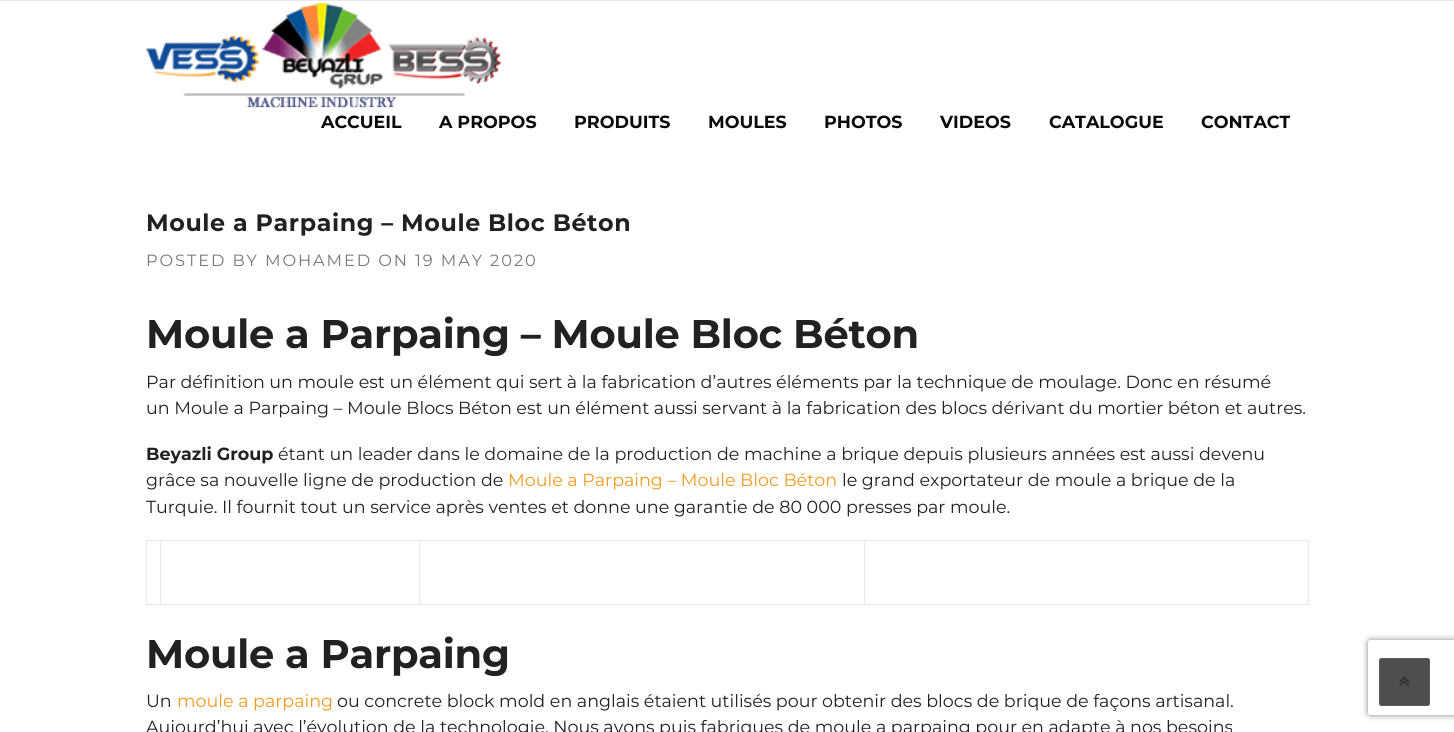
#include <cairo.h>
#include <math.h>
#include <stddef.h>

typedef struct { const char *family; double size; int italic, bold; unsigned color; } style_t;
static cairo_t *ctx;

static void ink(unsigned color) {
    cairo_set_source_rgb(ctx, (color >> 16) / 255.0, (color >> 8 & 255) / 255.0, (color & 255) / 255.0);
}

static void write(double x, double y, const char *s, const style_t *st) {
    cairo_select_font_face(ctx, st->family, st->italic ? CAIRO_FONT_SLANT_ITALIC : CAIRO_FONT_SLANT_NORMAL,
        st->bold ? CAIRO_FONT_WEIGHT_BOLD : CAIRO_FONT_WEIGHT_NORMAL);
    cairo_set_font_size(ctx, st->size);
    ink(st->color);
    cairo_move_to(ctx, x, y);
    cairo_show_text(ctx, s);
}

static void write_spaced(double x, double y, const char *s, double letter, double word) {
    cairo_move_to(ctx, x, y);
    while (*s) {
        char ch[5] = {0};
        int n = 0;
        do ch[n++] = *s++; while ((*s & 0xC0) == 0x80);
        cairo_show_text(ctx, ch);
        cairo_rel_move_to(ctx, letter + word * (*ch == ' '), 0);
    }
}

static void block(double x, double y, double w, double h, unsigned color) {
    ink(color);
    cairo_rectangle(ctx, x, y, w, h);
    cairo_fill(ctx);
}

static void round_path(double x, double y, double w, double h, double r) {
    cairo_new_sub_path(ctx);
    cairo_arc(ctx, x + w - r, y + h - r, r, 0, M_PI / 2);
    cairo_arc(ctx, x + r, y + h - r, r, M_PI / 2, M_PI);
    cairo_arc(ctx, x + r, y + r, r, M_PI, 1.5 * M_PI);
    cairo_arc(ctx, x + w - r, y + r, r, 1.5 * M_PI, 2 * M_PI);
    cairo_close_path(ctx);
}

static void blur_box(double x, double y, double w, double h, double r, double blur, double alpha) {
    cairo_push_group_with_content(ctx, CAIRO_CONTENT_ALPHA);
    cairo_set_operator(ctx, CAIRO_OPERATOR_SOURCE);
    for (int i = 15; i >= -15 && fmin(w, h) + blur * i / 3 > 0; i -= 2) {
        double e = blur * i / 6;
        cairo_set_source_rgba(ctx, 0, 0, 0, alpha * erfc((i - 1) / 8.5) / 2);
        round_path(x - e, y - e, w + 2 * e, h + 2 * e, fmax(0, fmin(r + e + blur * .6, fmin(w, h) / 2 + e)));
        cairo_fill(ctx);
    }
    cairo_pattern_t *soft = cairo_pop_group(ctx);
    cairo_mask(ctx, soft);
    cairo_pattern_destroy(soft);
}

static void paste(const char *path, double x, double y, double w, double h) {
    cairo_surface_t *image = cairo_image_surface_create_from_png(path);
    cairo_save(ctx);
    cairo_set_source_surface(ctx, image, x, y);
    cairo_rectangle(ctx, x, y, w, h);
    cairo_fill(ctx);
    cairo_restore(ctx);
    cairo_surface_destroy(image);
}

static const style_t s1 = {"Montserrat", 17.5, 0, 1, 0x0a0a0a};
static const style_t s2 = {"Montserrat", 17.5, 0, 0, 0x212121};
static const style_t s3 = {"Montserrat", 17.5, 0, 1, 0x212121};
static const style_t s4 = {"Montserrat", 17.5, 0, 0, 0xf49a22};

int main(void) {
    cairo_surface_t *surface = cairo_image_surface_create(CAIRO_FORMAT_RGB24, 1454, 732);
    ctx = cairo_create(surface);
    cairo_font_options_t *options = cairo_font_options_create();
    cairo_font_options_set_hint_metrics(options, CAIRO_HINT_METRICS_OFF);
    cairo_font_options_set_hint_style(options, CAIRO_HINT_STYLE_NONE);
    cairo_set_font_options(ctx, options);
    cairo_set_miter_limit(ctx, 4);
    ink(0xffffff);
    cairo_paint(ctx);
    block(0, 0, 1454, 1, 0xe9e9e9);
    paste("pic1.png", 146, 3, 356, 106);
    write(321, 128, "ACCUEIL", &s1);
    write(439, 128, "A PROPOS", &s1);
    write(574, 128, "PRODUITS", &s1);
    write(708, 128, "MOULES", &s1);
    write(824, 128, "PHOTOS", &s1);
    write(940, 128, "VIDEOS", &s1);
    write(1049, 128, "CATALOGUE", &s1);
    write(1201, 128, "CONTACT", &s1);
    cairo_set_font_size(ctx, 23.75);
    ink(0x212121);
    write_spaced(146, 231, "Moule a Parpaing – Moule Bloc Béton", 0.6, 0);
    cairo_select_font_face(ctx, "Montserrat", CAIRO_FONT_SLANT_NORMAL, CAIRO_FONT_WEIGHT_NORMAL);
    cairo_set_font_size(ctx, 16.25);
    ink(0x777777);
    write_spaced(146, 266, "POSTED BY MOHAMED ON 19 MAY 2020", 1.9, 0);
    cairo_select_font_face(ctx, "Montserrat", CAIRO_FONT_SLANT_NORMAL, CAIRO_FONT_WEIGHT_BOLD);
    cairo_set_font_size(ctx, 40);
    ink(0x212121);
    write_spaced(146, 348, "Moule a Parpaing – Moule Bloc Béton", -0.25, 0);
    write(146, 388, "Par définition un moule est un élément qui sert à la fabrication d’autres éléments par la technique de moulage. Donc en résumé", &s2);
    write(146, 414, "un Moule a Parpaing – Moule Blocs Béton est un élément aussi servant à la fabrication des blocs dérivant du mortier béton et autres.", &s2);
    write(146, 460, "Beyazli Group", &s3);
    write(278, 460, "étant un leader dans le domaine de la production de machine a brique depuis plusieurs années est aussi devenu", &s2);
    write(146, 486, "grâce sa nouvelle ligne de production de", &s2);
    write(508, 486, "Moule a Parpaing – Moule Bloc Béton", &s4);
    write(842, 486, "le grand exportateur de moule a brique de la", &s2);
    write(146, 513, "Turquie. Il fournit tout un service après ventes et donne une garantie de 80 000 presses par moule.", &s2);
    block(146, 540, 1163, 1, 0xe9e9e9);
    block(1308, 540, 1, 65, 0xe9e9e9);
    block(146, 604, 1163, 1, 0xe9e9e9);
    block(146, 540, 1, 65, 0xe9e9e9);
    block(160, 540, 1, 65, 0xe9e9e9);
    block(419, 540, 1, 65, 0xe9e9e9);
    block(864, 540, 1, 65, 0xe9e9e9);
    cairo_select_font_face(ctx, "Montserrat", CAIRO_FONT_SLANT_NORMAL, CAIRO_FONT_WEIGHT_BOLD);
    cairo_set_font_size(ctx, 40);
    ink(0x212121);
    write_spaced(146, 668, "Moule a Parpaing", -0.25, 0);
    write(146, 707, "Un", &s2);
    write(177, 707, "moule a parpaing", &s4);
    write(337, 707, "ou concrete block mold en anglais étaient utilisés pour obtenir des blocs de brique de façons artisanal.", &s2);
    write(146, 733, "Aujourd’hui avec l’évolution de la technologie, Nous avons puis fabriques de moule a parpaing pour en adapte à nos besoins", &s2);
    cairo_save(ctx);
    cairo_set_fill_rule(ctx, CAIRO_FILL_RULE_EVEN_ODD);
    cairo_new_path(ctx);
    cairo_move_to(ctx, 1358, 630);
    cairo_line_to(ctx, 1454, 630);
    cairo_line_to(ctx, 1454, 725);
    cairo_line_to(ctx, 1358, 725);
    cairo_close_path(ctx);
    cairo_move_to(ctx, 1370.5, 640);
    cairo_line_to(ctx, 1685.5, 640);
    cairo_curve_to(ctx, 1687, 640, 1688, 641, 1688, 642.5);
    cairo_line_to(ctx, 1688, 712.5);
    cairo_curve_to(ctx, 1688, 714, 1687, 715, 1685.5, 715);
    cairo_line_to(ctx, 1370.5, 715);
    cairo_curve_to(ctx, 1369, 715, 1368, 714, 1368, 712.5);
    cairo_line_to(ctx, 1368, 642.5);
    cairo_curve_to(ctx, 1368, 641, 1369, 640, 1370.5, 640);
    cairo_close_path(ctx);
    cairo_clip(ctx);
    ink(0x808080);
    blur_box(1368, 640, 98, 75, 2.5, 3, 1);
    cairo_restore(ctx);
    ink(0x4e4e4e);
    round_path(1379.5, 658.5, 50, 47, 2);
    cairo_fill_preserve(ctx);
    ink(0x5c5c5c);
    cairo_set_line_width(ctx, 1);
    cairo_stroke(ctx);
    paste("pic2.png", 1399, 676, 11, 10);
    cairo_surface_write_to_png(surface, "screenshot.png");
    cairo_font_options_destroy(options);
    cairo_destroy(ctx);
    cairo_surface_destroy(surface);
    return 0;
}
